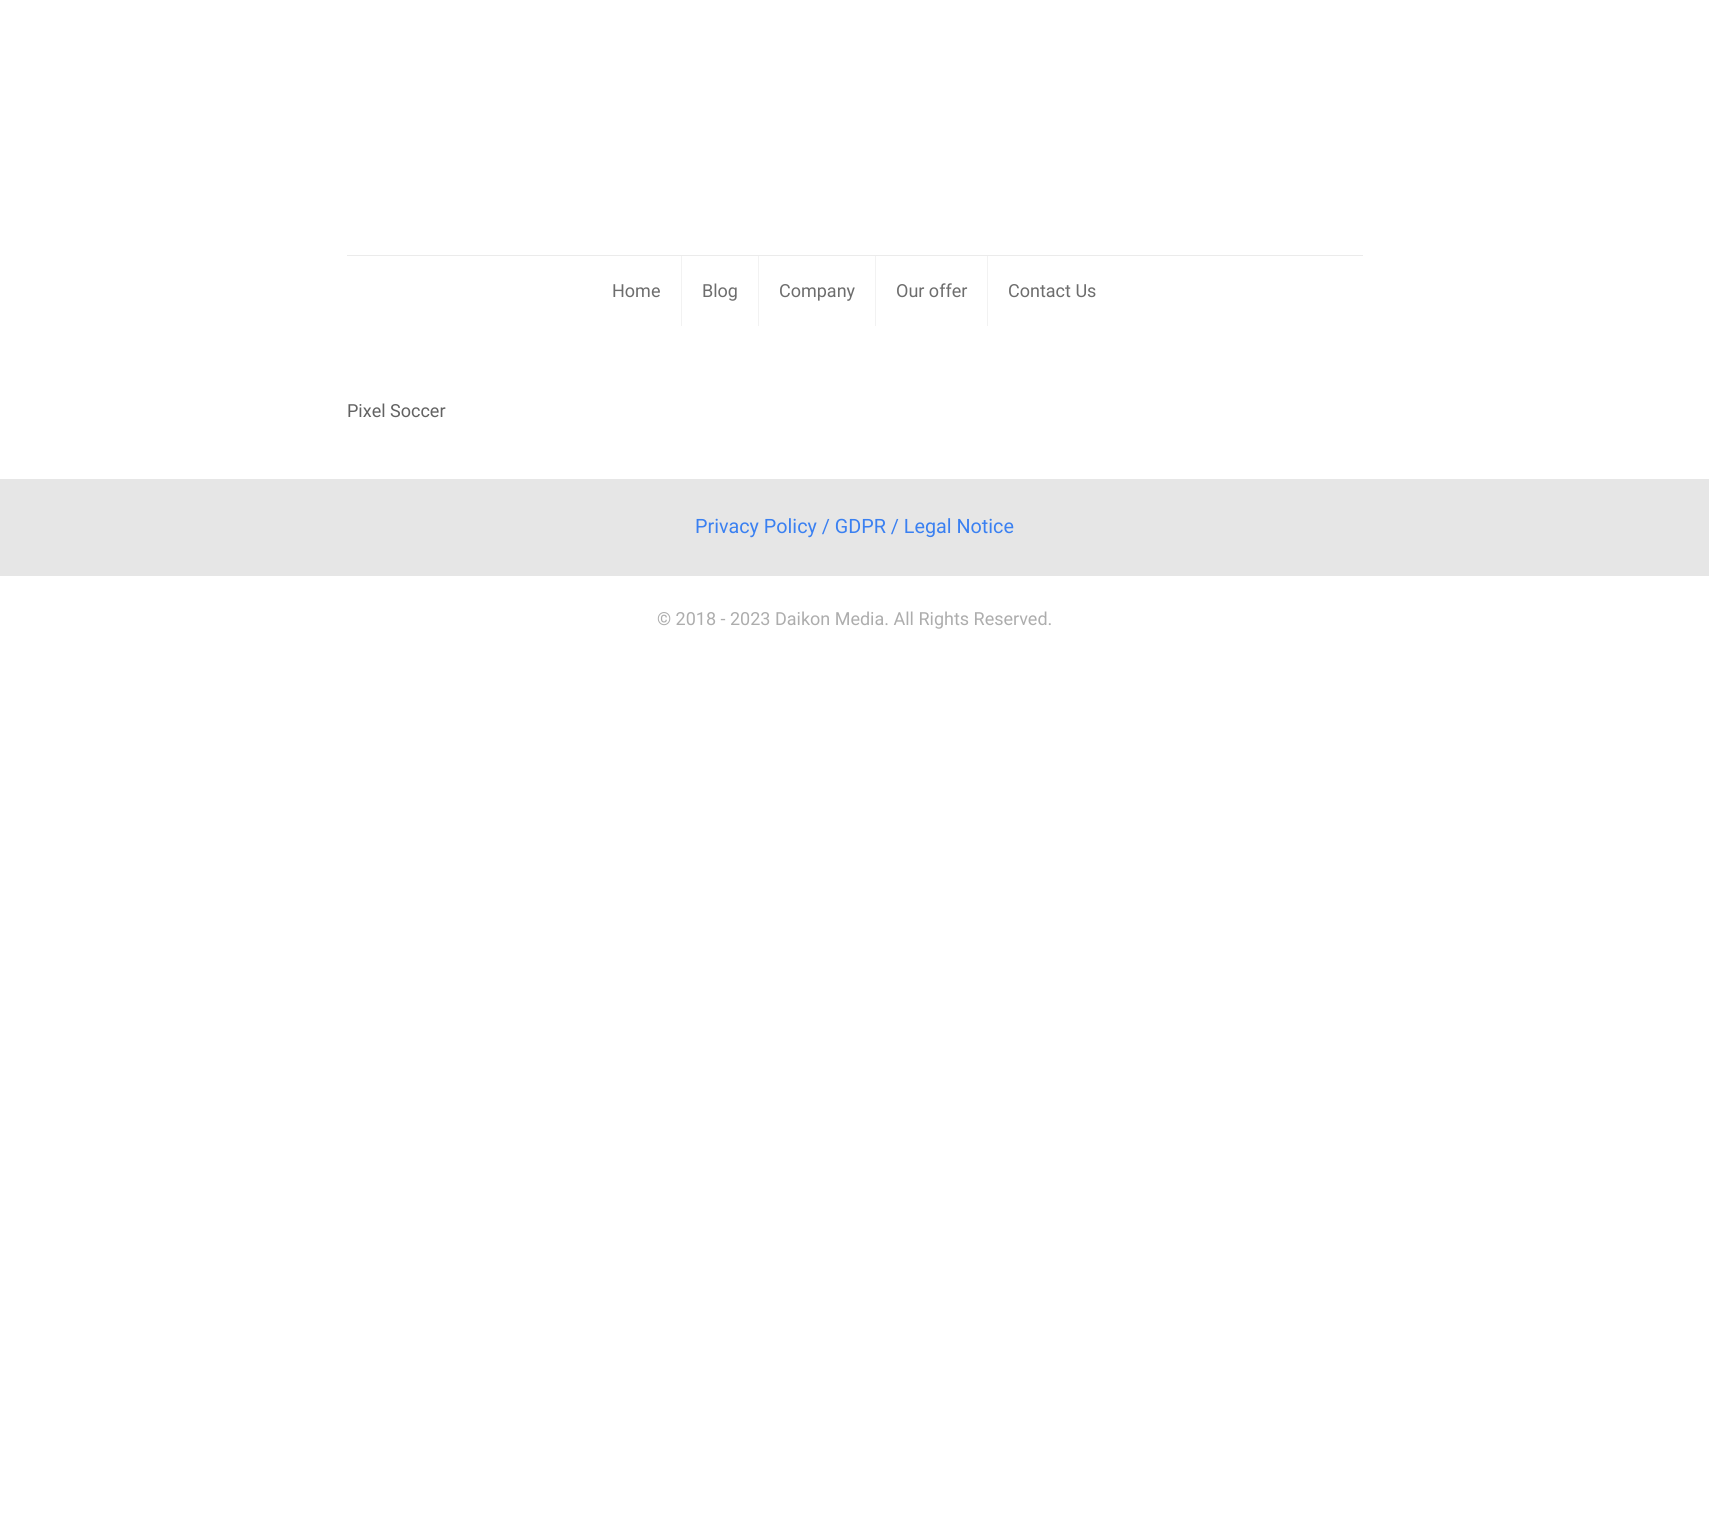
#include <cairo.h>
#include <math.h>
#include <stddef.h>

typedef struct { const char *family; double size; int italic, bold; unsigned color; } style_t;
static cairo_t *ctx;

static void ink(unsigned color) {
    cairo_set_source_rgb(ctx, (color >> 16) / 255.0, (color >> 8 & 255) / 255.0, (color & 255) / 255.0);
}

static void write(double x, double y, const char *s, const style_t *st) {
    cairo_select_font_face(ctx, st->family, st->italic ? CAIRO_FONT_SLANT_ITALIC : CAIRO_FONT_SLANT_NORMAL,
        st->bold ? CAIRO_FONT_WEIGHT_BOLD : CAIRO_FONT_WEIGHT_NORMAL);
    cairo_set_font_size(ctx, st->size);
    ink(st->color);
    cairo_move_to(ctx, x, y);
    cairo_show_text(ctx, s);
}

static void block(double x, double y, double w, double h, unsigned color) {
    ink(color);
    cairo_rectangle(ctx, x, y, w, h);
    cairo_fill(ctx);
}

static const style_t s1 = {"Roboto", 18, 0, 0, 0x6d6d6d};
static const style_t s2 = {"Roboto", 18, 0, 0, 0x626262};
static const style_t s3 = {"Roboto", 19.75, 0, 0, 0x3a80f1};
static const style_t s4 = {"Roboto", 18, 0, 0, 0xadadad};

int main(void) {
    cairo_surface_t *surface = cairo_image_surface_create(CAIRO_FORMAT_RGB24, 1709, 1539);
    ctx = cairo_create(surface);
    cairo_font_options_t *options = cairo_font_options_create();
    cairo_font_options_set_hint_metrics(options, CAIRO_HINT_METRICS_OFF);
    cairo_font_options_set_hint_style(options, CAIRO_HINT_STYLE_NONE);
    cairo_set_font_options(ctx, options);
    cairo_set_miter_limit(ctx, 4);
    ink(0xffffff);
    cairo_paint(ctx);
    block(347, 255, 1016, 1, 0xebebeb);
    block(681, 256, 1, 70, 0xf2f2f2);
    write(612, 297, "Home", &s1);
    block(758, 256, 1, 70, 0xf2f2f2);
    write(702, 297, "Blog", &s1);
    block(875, 256, 1, 70, 0xf2f2f2);
    write(779, 297, "Company", &s1);
    block(987, 256, 1, 70, 0xf2f2f2);
    write(896, 297, "Our offer", &s1);
    write(1008, 297, "Contact Us", &s1);
    write(347, 417, "Pixel Soccer", &s2);
    block(0, 479, 1709, 97, 0xe6e6e6);
    write(695, 533, "Privacy Policy / GDPR / Legal Notice", &s3);
    write(657, 625, "© 2018 - 2023 Daikon Media. All Rights Reserved.", &s4);
    cairo_surface_write_to_png(surface, "screenshot.png");
    cairo_font_options_destroy(options);
    cairo_destroy(ctx);
    cairo_surface_destroy(surface);
    return 0;
}
